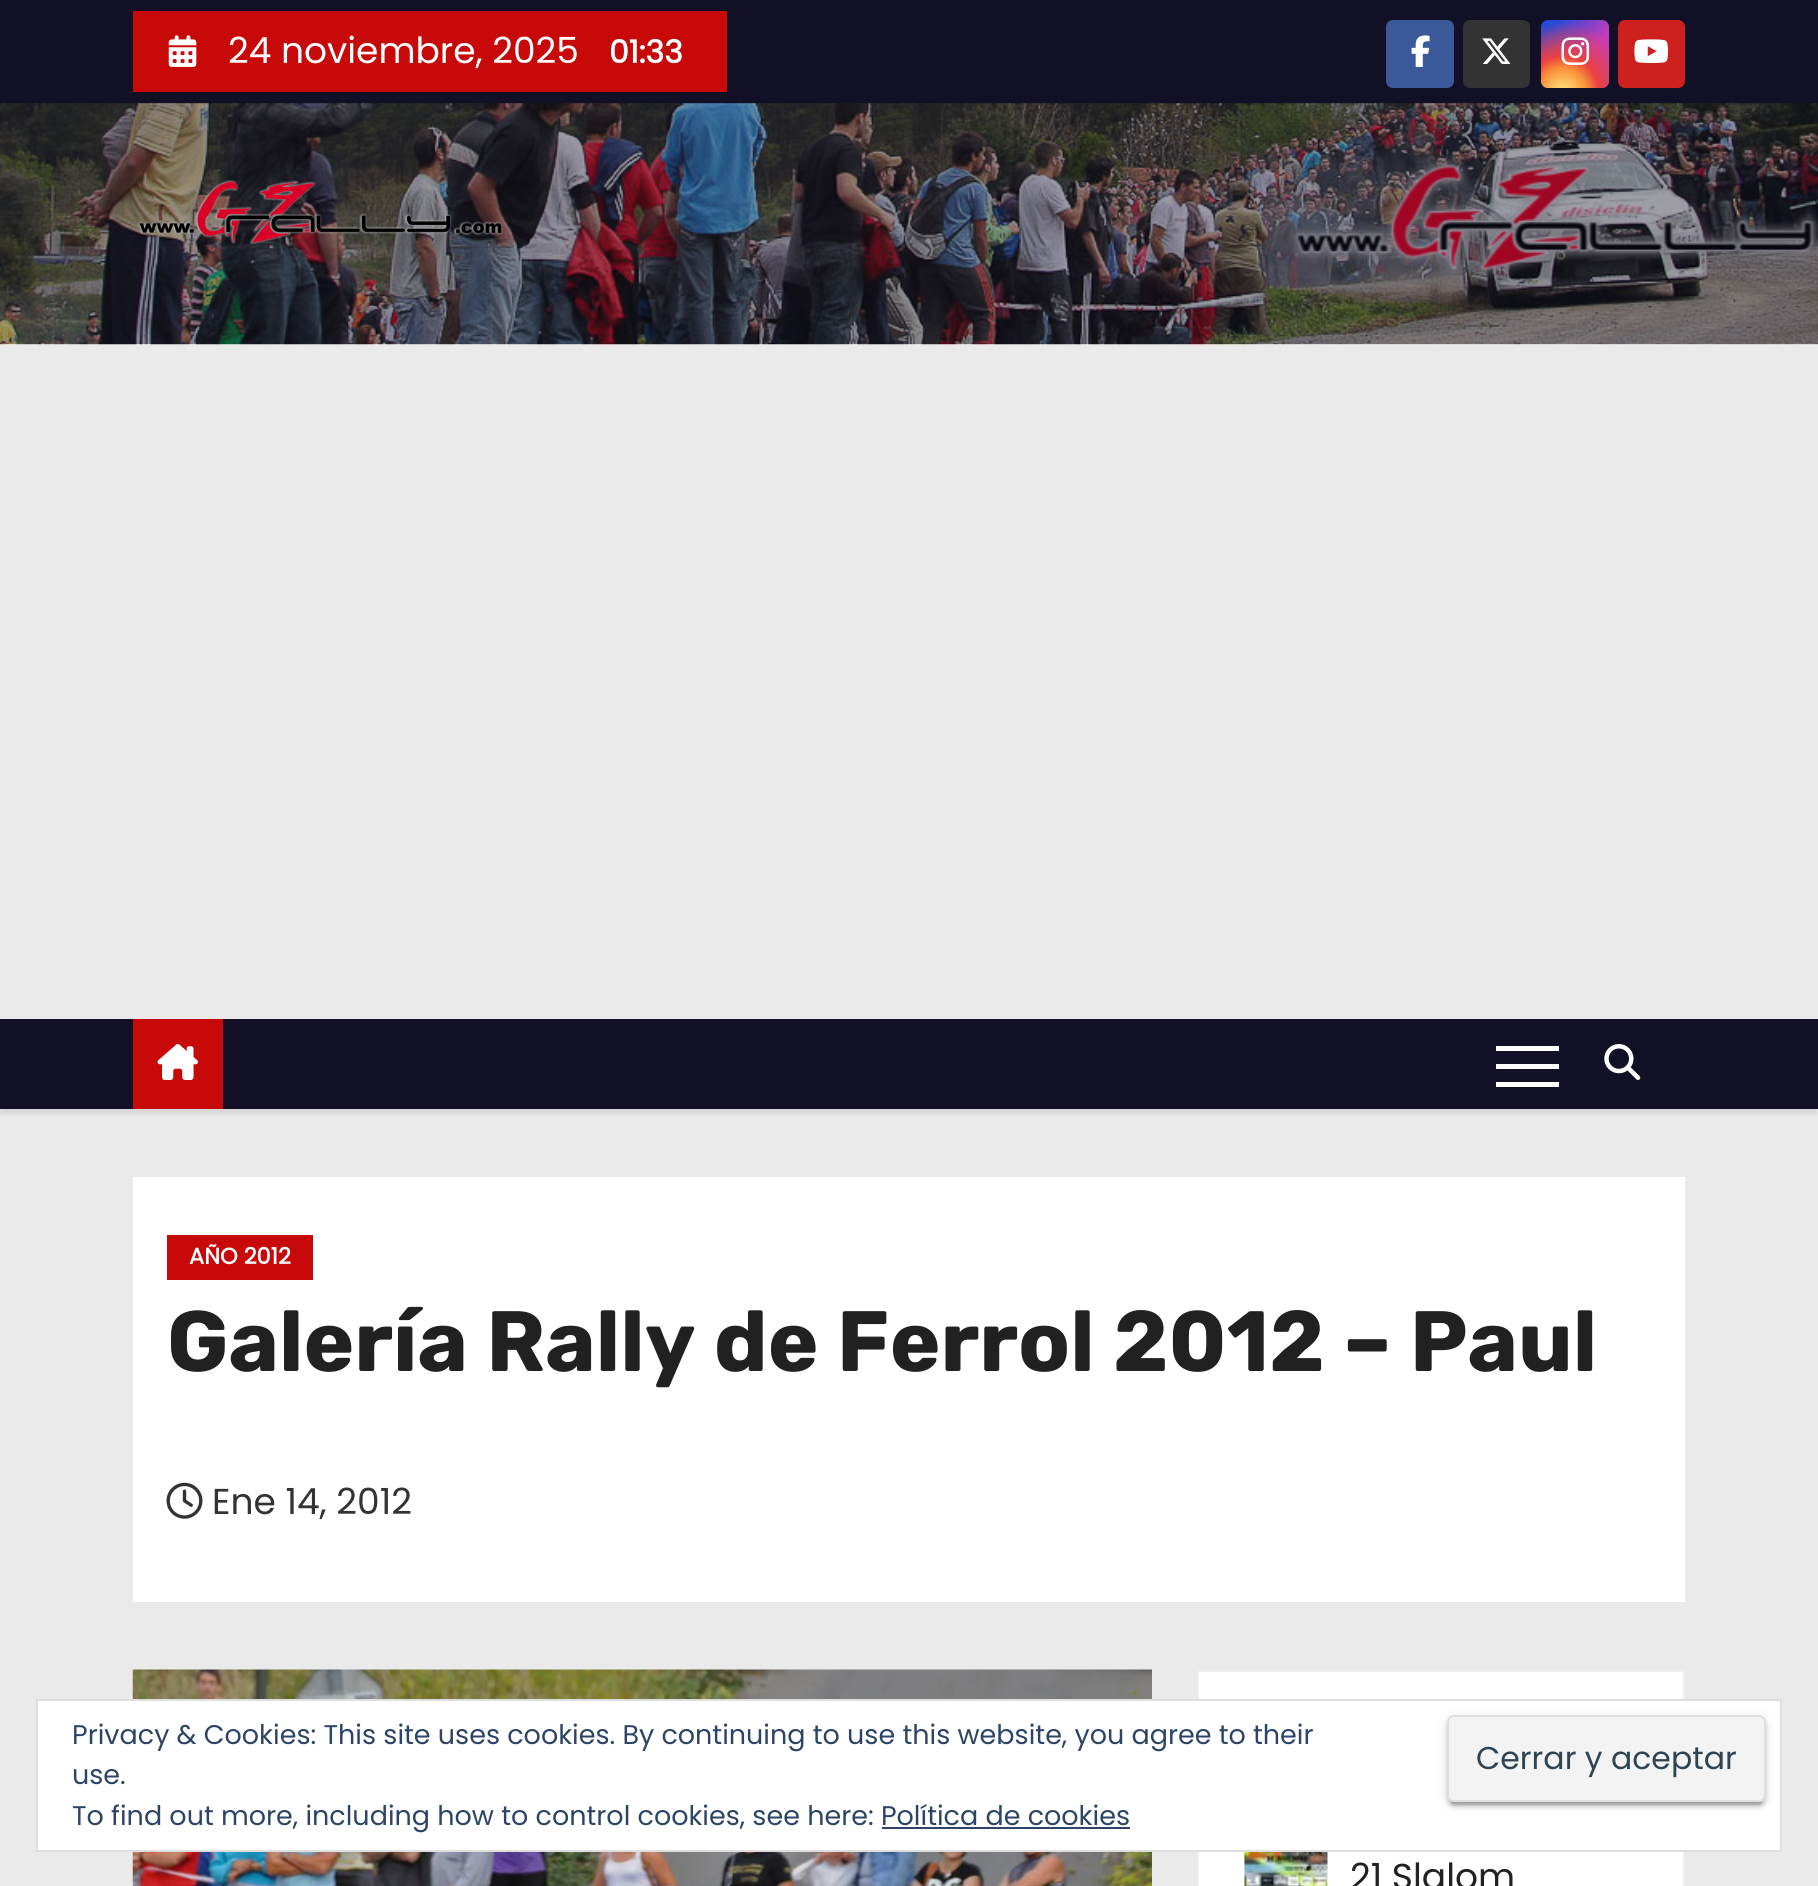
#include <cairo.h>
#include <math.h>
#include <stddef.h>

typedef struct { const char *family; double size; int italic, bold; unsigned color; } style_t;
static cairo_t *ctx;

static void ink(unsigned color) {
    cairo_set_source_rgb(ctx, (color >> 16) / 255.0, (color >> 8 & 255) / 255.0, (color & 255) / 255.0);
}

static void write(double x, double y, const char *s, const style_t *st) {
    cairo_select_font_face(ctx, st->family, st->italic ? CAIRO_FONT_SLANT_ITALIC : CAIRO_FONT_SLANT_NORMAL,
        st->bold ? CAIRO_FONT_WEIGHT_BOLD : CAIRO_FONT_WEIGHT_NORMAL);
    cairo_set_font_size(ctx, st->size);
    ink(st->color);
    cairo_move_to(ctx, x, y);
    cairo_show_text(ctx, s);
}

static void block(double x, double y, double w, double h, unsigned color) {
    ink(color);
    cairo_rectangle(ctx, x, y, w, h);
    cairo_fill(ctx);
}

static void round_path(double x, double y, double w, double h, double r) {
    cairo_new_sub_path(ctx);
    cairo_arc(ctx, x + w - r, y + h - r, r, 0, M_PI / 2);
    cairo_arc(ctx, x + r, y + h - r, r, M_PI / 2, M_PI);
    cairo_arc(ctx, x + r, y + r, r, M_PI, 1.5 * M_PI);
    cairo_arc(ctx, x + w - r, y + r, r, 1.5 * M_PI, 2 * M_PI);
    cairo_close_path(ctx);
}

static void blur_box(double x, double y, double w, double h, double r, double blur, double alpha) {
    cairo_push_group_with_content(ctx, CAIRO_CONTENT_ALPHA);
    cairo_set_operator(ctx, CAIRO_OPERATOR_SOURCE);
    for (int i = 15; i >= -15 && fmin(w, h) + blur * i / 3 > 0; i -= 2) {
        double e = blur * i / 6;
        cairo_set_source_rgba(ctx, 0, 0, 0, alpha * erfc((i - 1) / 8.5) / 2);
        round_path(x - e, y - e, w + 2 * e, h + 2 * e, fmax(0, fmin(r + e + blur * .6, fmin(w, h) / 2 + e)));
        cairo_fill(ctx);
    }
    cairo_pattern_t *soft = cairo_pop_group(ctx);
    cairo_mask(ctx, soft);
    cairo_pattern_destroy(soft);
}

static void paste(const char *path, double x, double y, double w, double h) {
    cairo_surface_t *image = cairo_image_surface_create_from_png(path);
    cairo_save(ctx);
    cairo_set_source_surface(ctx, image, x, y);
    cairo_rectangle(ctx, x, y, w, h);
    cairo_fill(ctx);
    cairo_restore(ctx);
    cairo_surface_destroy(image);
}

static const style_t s1 = {"Poppins", 36, 0, 0, 0xffffff};
static const style_t s2 = {"Poppins", 31.5, 0, 1, 0xffffff};
static const style_t s3 = {"Poppins", 22.5, 0, 1, 0xffffff};
static const style_t s4 = {"Rubik", 85.5, 0, 1, 0x212121};
static const style_t s5 = {"Poppins", 36, 0, 0, 0x333333};
static const style_t s6 = {"Poppins", 36, 0, 0, 0x212121};
static const style_t s7 = {"Poppins", 27, 0, 0, 0x2e4467};
static const style_t s8 = {"Poppins", 31.5, 0, 0, 0x2e4453};

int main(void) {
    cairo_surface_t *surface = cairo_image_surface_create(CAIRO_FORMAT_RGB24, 1818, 1886);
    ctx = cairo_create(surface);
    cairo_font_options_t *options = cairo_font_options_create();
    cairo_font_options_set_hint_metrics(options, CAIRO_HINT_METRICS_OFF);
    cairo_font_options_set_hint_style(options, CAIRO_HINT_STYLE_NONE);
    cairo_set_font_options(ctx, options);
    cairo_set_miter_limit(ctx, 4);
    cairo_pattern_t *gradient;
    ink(0xeaeaea);
    cairo_paint(ctx);
    block(0, 0, 1818, 104, 0x121026);
    block(133, 11, 594, 81, 0xc70909);
    paste("pic1.png", 168, 35, 29, 32);
    write(228, 63, "24 noviembre, 2025", &s1);
    write(609, 63, "01:33", &s2);
    ink(0x3b5998);
    round_path(1386, 20, 68, 68, 7);
    cairo_fill(ctx);
    paste("pic2.png", 1411, 35, 19, 32);
    ink(0x333333);
    round_path(1463, 20, 67, 68, 7);
    cairo_fill(ctx);
    paste("pic3.png", 1482, 38, 29, 26);
    gradient = cairo_pattern_create_linear(1541, 20, 1609, 88);
    cairo_pattern_add_color_stop_rgba(gradient, 0.12, 0.137, 0.294, 0.843, 1);
    cairo_pattern_add_color_stop_rgba(gradient, 0.58, 0.765, 0.235, 0.745, 1);
    cairo_set_source(ctx, gradient);
    cairo_pattern_destroy(gradient);
    round_path(1541, 20, 68, 68, 7);
    cairo_fill(ctx);
    gradient = cairo_pattern_create_radial(1563, 92, 0, 1563, 92, 85);
    cairo_pattern_add_color_stop_rgba(gradient, 0, 1, 0.882, 0.49, 1);
    cairo_pattern_add_color_stop_rgba(gradient, 0.1, 1, 0.804, 0.412, 1);
    cairo_pattern_add_color_stop_rgba(gradient, 0.28, 0.98, 0.569, 0.216, 1);
    cairo_pattern_add_color_stop_rgba(gradient, 0.42, 0.922, 0.255, 0.255, 1);
    cairo_pattern_add_color_stop_rgba(gradient, 0.82, 0.922, 0.255, 0.255, 0);
    cairo_set_source(ctx, gradient);
    cairo_pattern_destroy(gradient);
    round_path(1541, 20, 68, 68, 7);
    cairo_fill(ctx);
    paste("pic4.png", 1561, 37, 29, 28);
    ink(0xcd201f);
    round_path(1618, 20, 67, 68, 7);
    cairo_fill(ctx);
    paste("pic5.png", 1634, 39, 34, 24);
    paste("pic6.png", 0, 103, 1818, 242);
    paste("pic7.png", 136, 179, 367, 66);
    ink(0x000000);
    blur_box(0, 1024, 1818, 90, 0, 2, 0.08);
    block(0, 1019, 1818, 90, 0x121026);
    block(133, 1019, 90, 90, 0xc70909);
    paste("pic8.png", 157, 1044, 41, 36);
    block(1496, 1046, 63, 5, 0xffffff);
    block(1496, 1064, 63, 5, 0xffffff);
    block(1496, 1082, 63, 5, 0xffffff);
    paste("pic9.png", 1604, 1044, 37, 36);
    block(133, 1177, 1552, 425, 0xffffff);
    block(167, 1235, 146, 45, 0xc70909);
    write(189, 1264, "AÑO 2012", &s3);
    write(167, 1371, "Galería Rally de Ferrol 2012 – Paul", &s4);
    paste("pic10.png", 166, 1482, 37, 37);
    write(212, 1514, "Ene 14, 2012", &s5);
    paste("pic11.png", 132, 1669, 1020, 217);
    ink(0xffffff);
    cairo_rectangle(ctx, 1198, 1671, 486, 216);
    cairo_fill_preserve(ctx);
    ink(0xeeeeee);
    cairo_stroke(ctx);
    paste("pic12.png", 1244, 1852, 84, 34);
    write(1350, 1889, "21 Slalom", &s6);
    ink(0xffffff);
    cairo_rectangle(ctx, 37, 1700, 1744, 151);
    cairo_fill_preserve(ctx);
    ink(0xdedede);
    cairo_stroke(ctx);
    write(72, 1744, "Privacy & Cookies: This site uses cookies. By continuing to use this website, you agree to their", &s7);
    write(72, 1784, "use.", &s7);
    ink(0x000000);
    blur_box(1447, 1717, 319, 88, 7, 5.5, 0.12);
    blur_box(1451, 1726, 311, 79, 2, 1, 0.2);
    blur_box(1447, 1719, 319, 88, 7, 2, 0.14);
    ink(0xf3f3f3);
    round_path(1448, 1716, 317, 85, 6);
    cairo_fill_preserve(ctx);
    ink(0xdedede);
    cairo_stroke(ctx);
    write(1476, 1769, "Cerrar y aceptar", &s8);
    write(72, 1825, "To find out more, including how to control cookies, see here: Política de cookies", &s7);
    block(882, 1827, 248, 2, 0x2e4467);
    cairo_surface_write_to_png(surface, "screenshot.png");
    cairo_font_options_destroy(options);
    cairo_destroy(ctx);
    cairo_surface_destroy(surface);
    return 0;
}
